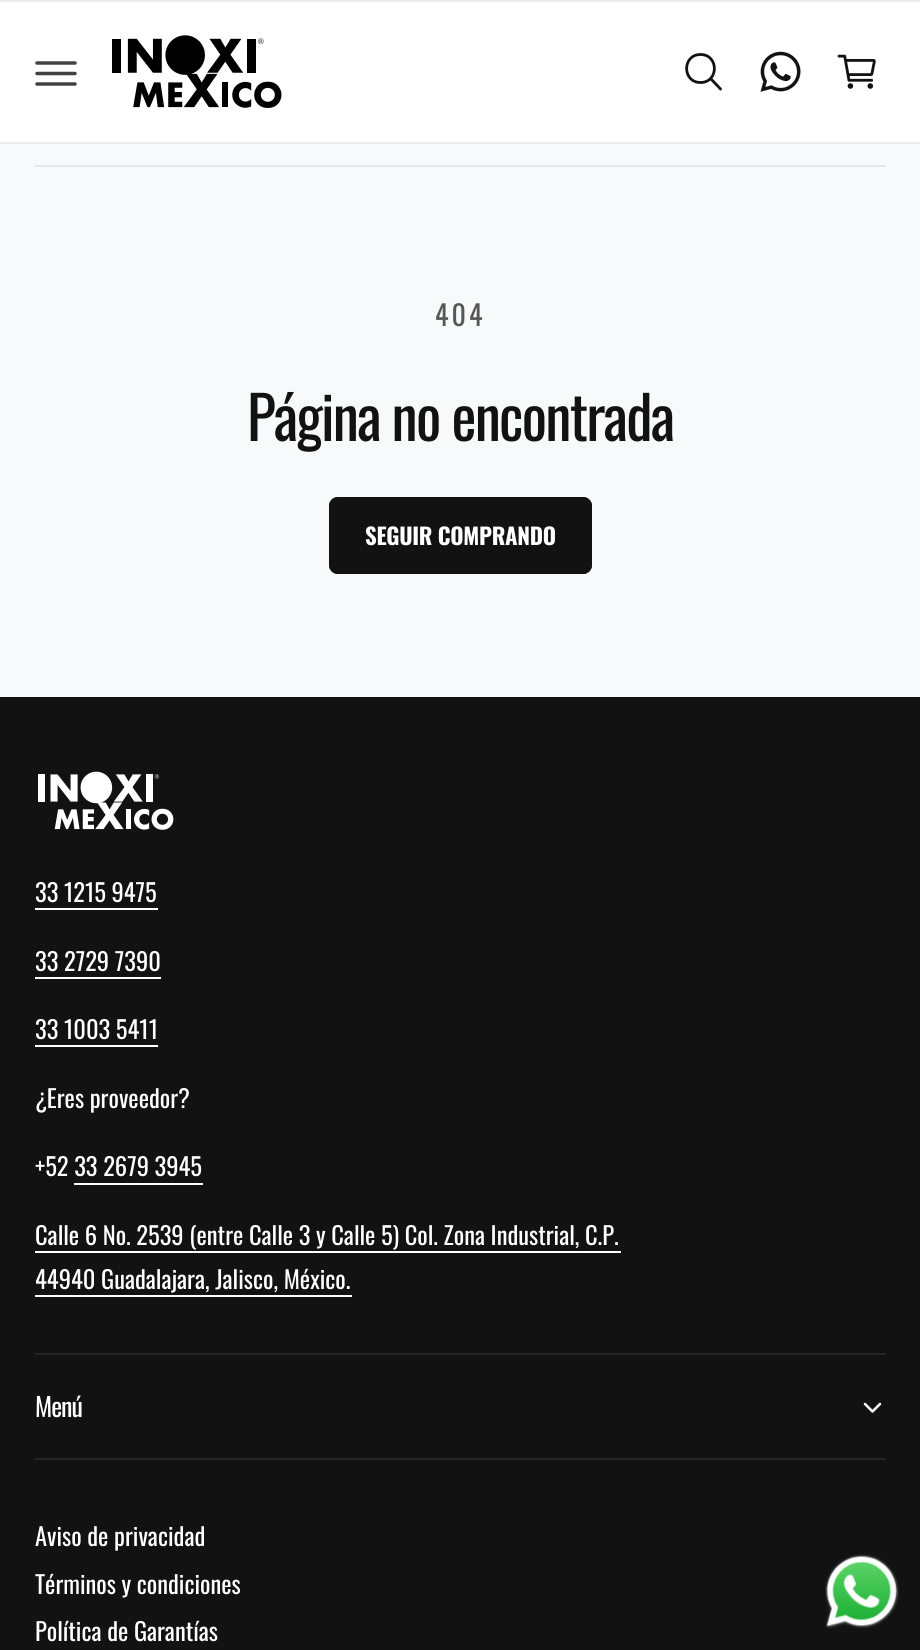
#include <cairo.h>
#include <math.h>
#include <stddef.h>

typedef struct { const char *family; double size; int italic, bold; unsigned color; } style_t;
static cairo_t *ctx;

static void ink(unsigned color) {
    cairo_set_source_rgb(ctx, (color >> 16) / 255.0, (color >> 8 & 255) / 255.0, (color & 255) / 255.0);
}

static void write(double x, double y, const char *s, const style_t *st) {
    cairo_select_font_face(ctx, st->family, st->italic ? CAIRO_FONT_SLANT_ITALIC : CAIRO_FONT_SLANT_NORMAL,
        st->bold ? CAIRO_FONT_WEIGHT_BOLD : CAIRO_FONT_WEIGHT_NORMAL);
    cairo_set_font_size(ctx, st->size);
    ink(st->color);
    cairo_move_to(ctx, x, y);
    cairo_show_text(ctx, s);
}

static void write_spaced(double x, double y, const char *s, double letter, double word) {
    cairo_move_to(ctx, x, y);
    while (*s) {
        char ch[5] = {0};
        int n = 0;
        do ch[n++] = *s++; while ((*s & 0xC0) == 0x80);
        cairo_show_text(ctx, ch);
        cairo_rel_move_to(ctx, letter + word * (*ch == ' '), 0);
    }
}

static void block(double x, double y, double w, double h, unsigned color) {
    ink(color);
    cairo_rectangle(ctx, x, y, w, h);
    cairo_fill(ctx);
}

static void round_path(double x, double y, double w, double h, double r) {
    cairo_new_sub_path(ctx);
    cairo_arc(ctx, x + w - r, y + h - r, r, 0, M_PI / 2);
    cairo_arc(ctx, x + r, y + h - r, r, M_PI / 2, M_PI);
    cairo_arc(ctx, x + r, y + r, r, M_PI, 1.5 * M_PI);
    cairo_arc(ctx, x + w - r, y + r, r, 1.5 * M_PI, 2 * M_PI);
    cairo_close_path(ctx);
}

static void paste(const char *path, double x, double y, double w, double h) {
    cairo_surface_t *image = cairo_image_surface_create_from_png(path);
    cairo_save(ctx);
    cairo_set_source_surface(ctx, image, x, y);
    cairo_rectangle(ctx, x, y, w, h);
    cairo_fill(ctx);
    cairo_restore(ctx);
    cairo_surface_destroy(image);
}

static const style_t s1 = {"Oswald", 24.5, 0, 0, 0xffffff};

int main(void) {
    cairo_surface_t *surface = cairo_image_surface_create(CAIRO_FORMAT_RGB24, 920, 1650);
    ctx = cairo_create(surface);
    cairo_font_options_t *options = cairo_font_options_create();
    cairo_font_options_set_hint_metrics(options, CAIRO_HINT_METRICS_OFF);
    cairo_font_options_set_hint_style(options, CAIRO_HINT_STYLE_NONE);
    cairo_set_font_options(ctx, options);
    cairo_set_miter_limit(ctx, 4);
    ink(0xf8f9fa);
    cairo_paint(ctx);
    block(0, 2, 920, 140, 0xffffff);
    block(0, 0, 920, 2, 0xececec);
    block(0, 142, 920, 2, 0xececec);
    cairo_new_path(ctx);
    cairo_move_to(ctx, 37, 63);
    cairo_line_to(ctx, 75, 63);
    cairo_move_to(ctx, 37, 73.5);
    cairo_line_to(ctx, 75, 73.5);
    cairo_move_to(ctx, 37, 84);
    cairo_line_to(ctx, 75, 84);
    ink(0x414141);
    cairo_set_line_width(ctx, 3.5);
    cairo_set_line_cap(ctx, CAIRO_LINE_CAP_ROUND);
    cairo_stroke(ctx);
    paste("pic1.png", 112, 35, 170, 73);
    cairo_new_path(ctx);
    cairo_move_to(ctx, 700.5, 54.5);
    cairo_curve_to(ctx, 682, 54.5, 682, 82.5, 700.5, 82.5);
    cairo_curve_to(ctx, 719, 82.5, 719, 54.5, 700.5, 54.5);
    cairo_close_path(ctx);
    ink(0x121212);
    cairo_set_line_width(ctx, 2.8);
    cairo_set_line_cap(ctx, CAIRO_LINE_CAP_BUTT);
    cairo_stroke(ctx);
    cairo_new_path(ctx);
    cairo_move_to(ctx, 711, 79);
    cairo_line_to(ctx, 720.5, 89);
    cairo_set_line_cap(ctx, CAIRO_LINE_CAP_ROUND);
    cairo_stroke(ctx);
    paste("pic2.png", 760, 51, 41, 41);
    paste("pic3.png", 837, 54, 39, 35);
    block(35, 165, 851, 2, 0xe6e7e7);
    cairo_select_font_face(ctx, "Oswald", CAIRO_FONT_SLANT_NORMAL, CAIRO_FONT_WEIGHT_NORMAL);
    cairo_set_font_size(ctx, 28);
    ink(0x575758);
    write_spaced(435, 326, "404", 3, 0);
    cairo_set_font_size(ctx, 59.5);
    ink(0x121212);
    write_spaced(247, 441, "Página no encontrada", -1.75, 0);
    round_path(329, 497, 263, 77, 9);
    cairo_fill(ctx);
    round_path(330, 498, 261, 75, 8);
    cairo_set_line_width(ctx, 2);
    cairo_set_line_cap(ctx, CAIRO_LINE_CAP_BUTT);
    cairo_stroke(ctx);
    cairo_select_font_face(ctx, "Oswald", CAIRO_FONT_SLANT_NORMAL, CAIRO_FONT_WEIGHT_BOLD);
    cairo_set_font_size(ctx, 22.75);
    ink(0xffffff);
    write_spaced(365, 545, "SEGUIR COMPRANDO", -0.3, 0);
    block(0, 697, 920, 953, 0x121212);
    paste("pic4.png", 38, 771, 136, 59);
    write(35, 902, "33 1215 9475", &s1);
    block(35, 908, 123, 2, 0xffffff);
    write(35, 971, "33 2729 7390", &s1);
    block(35, 977, 126, 2, 0xffffff);
    write(35, 1039, "33 1003 5411", &s1);
    block(35, 1045, 123, 2, 0xffffff);
    write(35, 1108, "¿Eres proveedor?", &s1);
    write(35, 1176, "+52 33 2679 3945", &s1);
    block(74, 1183, 129, 2, 0xffffff);
    write(35, 1245, "Calle 6 No. 2539 (entre Calle 3 y Calle 5) Col. Zona Industrial, C.P.", &s1);
    block(35, 1251, 586, 2, 0xffffff);
    write(35, 1289, "44940 Guadalajara, Jalisco, México.", &s1);
    block(35, 1295, 317, 2, 0xffffff);
    block(35, 1353, 851, 2, 0x252525);
    block(35, 1458, 851, 2, 0x252525);
    cairo_set_font_size(ctx, 26);
    ink(0xffffff);
    write_spaced(35, 1417, "Menú", -1, 0);
    cairo_new_path(ctx);
    cairo_move_to(ctx, 865, 1404);
    cairo_line_to(ctx, 872.5, 1411.5);
    cairo_line_to(ctx, 880, 1404);
    cairo_set_line_width(ctx, 2.5);
    cairo_set_line_cap(ctx, CAIRO_LINE_CAP_ROUND);
    cairo_set_line_join(ctx, CAIRO_LINE_JOIN_ROUND);
    cairo_stroke(ctx);
    write(35, 1546, "Aviso de privacidad", &s1);
    write(35, 1594, "Términos y condiciones", &s1);
    write(35, 1641, "Política de Garantías", &s1);
    paste("pic5.png", 825, 1554, 74, 75);
    cairo_surface_write_to_png(surface, "screenshot.png");
    cairo_font_options_destroy(options);
    cairo_destroy(ctx);
    cairo_surface_destroy(surface);
    return 0;
}
